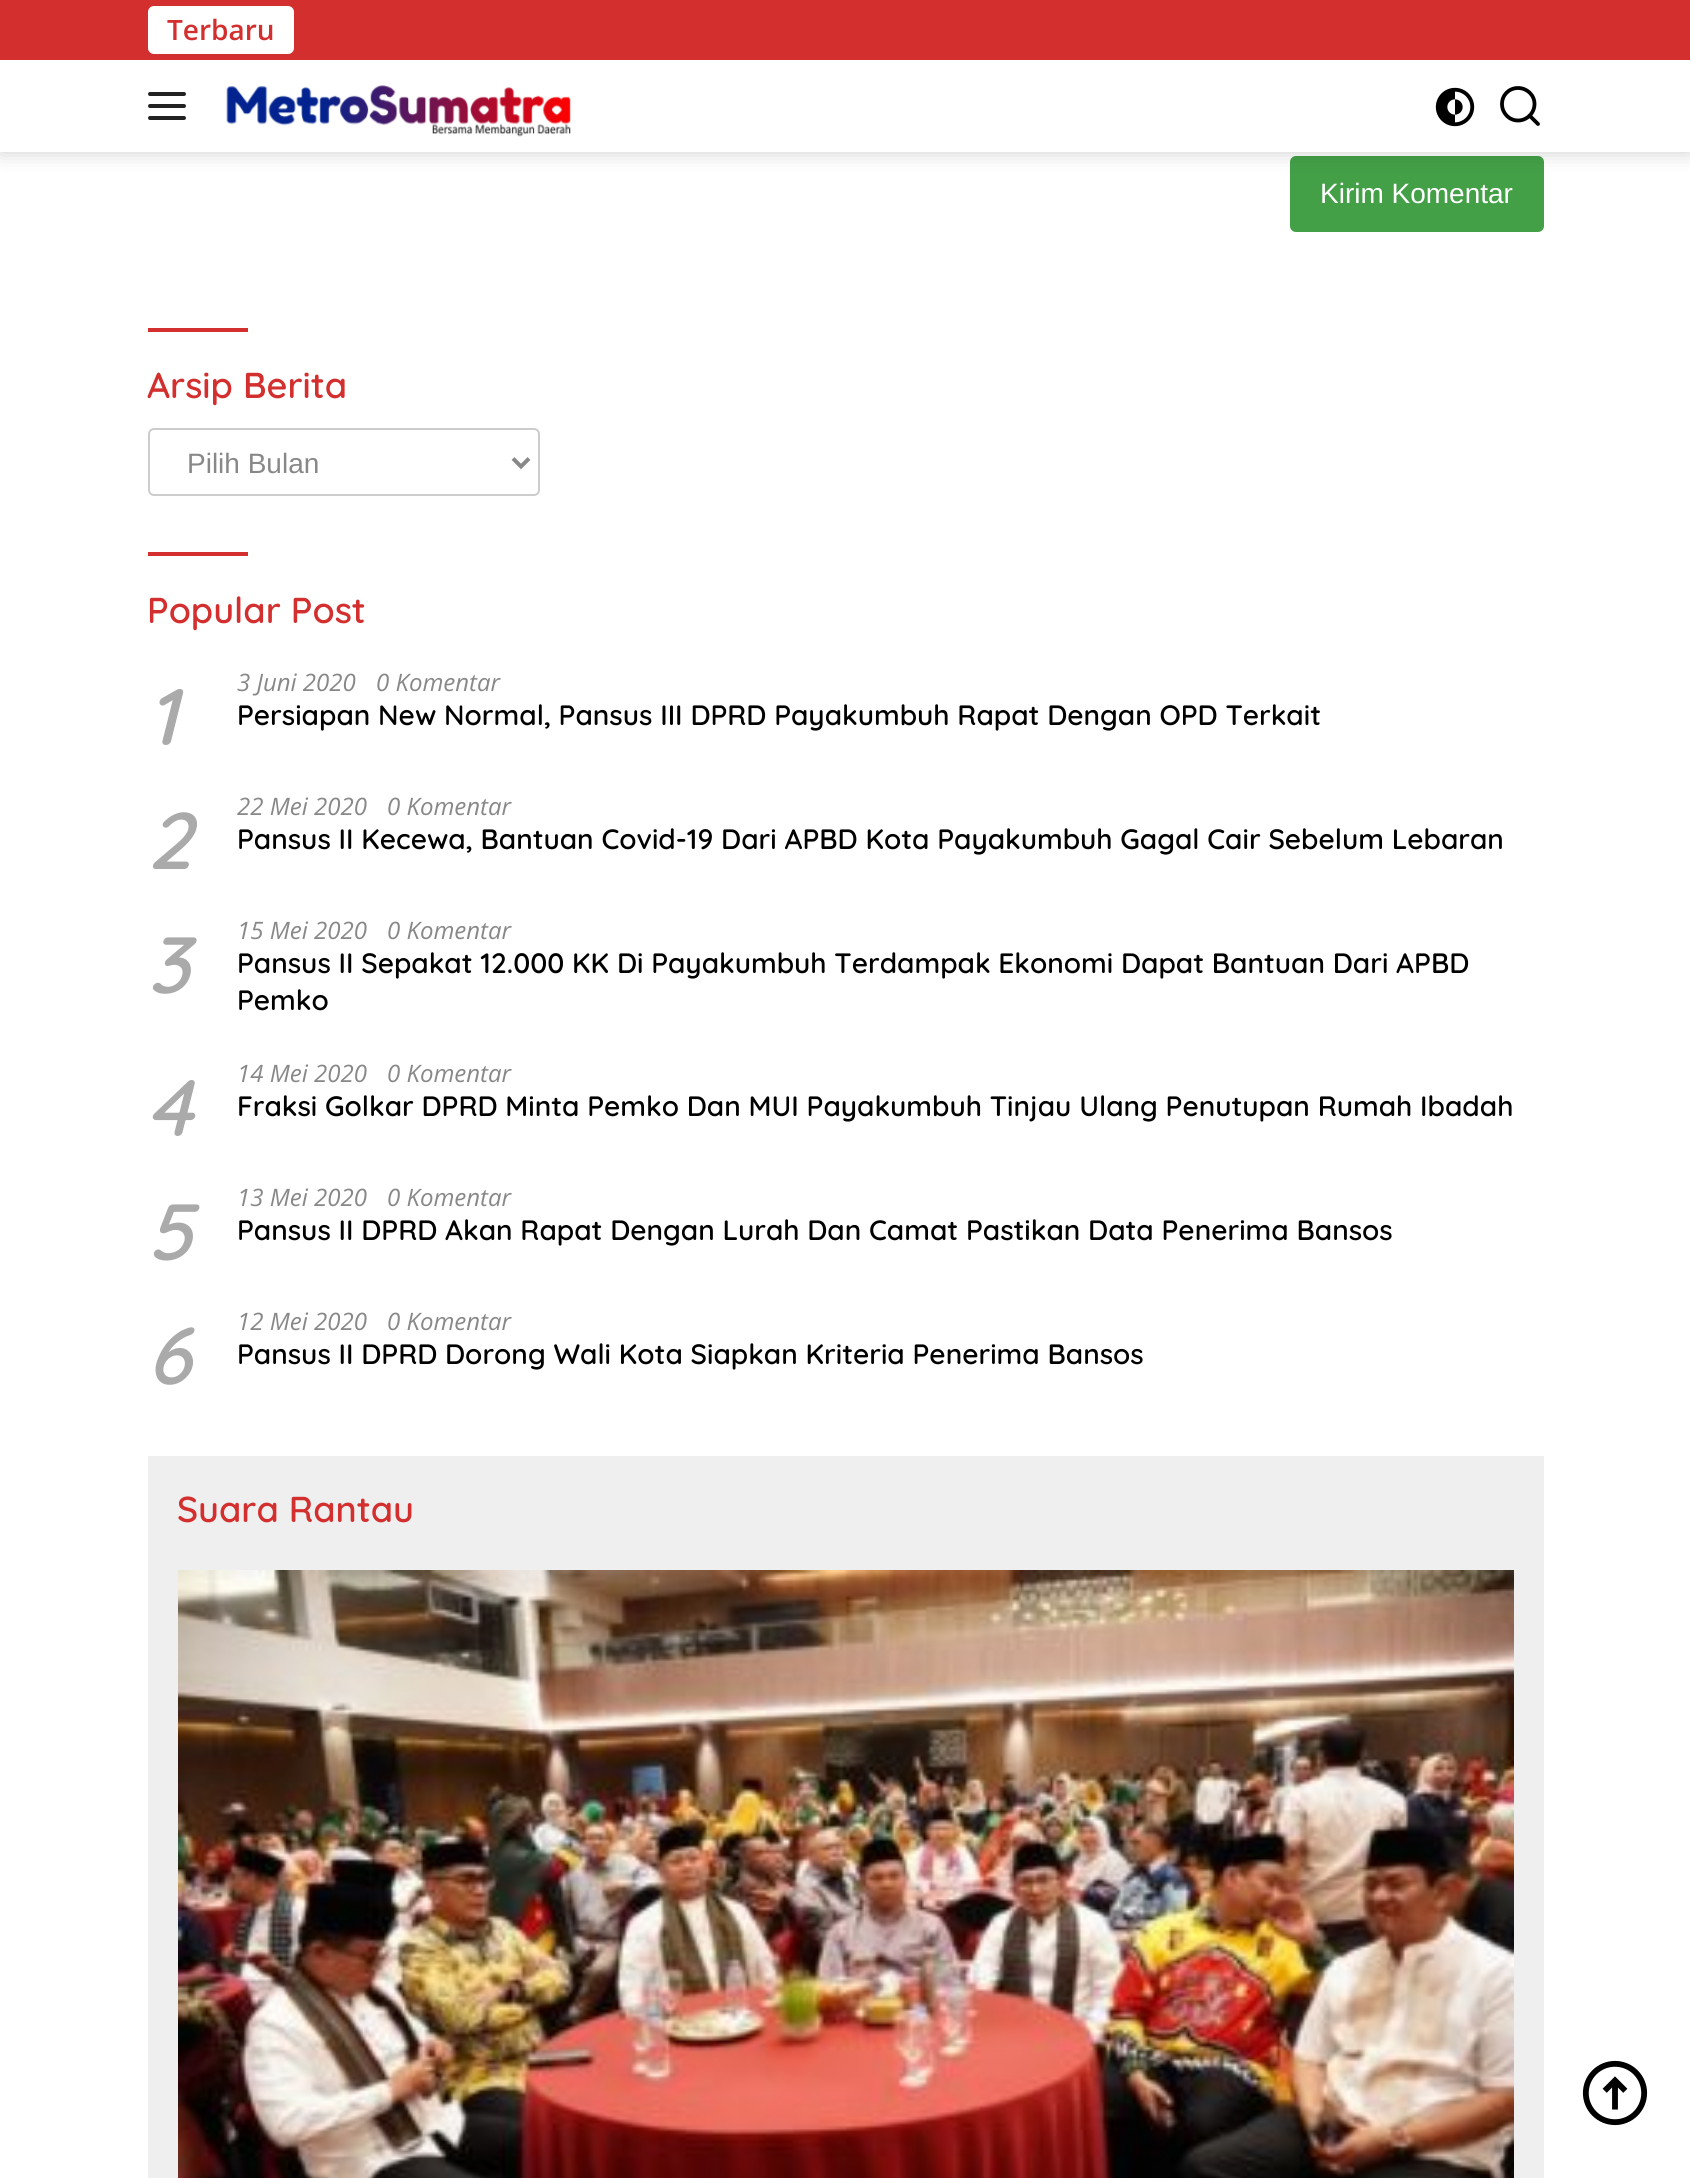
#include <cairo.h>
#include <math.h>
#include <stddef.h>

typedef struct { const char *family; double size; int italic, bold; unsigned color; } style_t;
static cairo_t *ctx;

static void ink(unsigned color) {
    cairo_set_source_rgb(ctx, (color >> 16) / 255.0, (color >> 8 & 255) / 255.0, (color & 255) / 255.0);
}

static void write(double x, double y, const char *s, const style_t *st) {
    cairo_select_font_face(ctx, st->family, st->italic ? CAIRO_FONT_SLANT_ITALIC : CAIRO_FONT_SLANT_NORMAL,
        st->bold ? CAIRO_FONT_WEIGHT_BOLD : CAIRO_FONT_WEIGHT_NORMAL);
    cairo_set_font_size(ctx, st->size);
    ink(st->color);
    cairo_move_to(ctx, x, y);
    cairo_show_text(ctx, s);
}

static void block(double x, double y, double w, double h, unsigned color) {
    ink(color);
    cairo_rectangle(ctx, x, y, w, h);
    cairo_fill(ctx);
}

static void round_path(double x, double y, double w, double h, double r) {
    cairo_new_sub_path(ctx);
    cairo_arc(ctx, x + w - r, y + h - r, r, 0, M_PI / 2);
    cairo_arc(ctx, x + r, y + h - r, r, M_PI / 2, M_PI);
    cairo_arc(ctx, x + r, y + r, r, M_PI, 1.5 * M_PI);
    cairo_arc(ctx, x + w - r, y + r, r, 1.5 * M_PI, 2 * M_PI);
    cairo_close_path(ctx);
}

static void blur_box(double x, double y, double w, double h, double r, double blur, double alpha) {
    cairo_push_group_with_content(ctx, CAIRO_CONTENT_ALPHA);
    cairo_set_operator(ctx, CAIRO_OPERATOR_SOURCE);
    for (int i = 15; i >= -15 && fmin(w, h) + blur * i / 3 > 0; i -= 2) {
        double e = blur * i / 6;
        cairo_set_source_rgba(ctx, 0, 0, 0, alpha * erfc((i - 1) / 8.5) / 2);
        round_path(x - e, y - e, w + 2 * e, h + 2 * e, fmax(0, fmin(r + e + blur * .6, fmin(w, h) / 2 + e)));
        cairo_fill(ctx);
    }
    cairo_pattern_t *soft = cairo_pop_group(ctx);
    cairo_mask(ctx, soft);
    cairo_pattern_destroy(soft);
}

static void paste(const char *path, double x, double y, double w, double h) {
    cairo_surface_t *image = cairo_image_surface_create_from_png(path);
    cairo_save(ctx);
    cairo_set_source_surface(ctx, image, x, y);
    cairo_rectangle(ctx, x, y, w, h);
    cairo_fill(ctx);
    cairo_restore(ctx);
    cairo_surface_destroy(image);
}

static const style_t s1 = {"Open Sans SemiBold", 28, 0, 0, 0xd32f2f};
static const style_t s2 = {"Liberation Sans", 28, 0, 0, 0xffffff};
static const style_t s3 = {"Quicksand SemiBold", 36, 0, 0, 0xd32f2f};
static const style_t s4 = {"Liberation Sans", 28, 0, 0, 0x888888};
static const style_t s5 = {"Quicksand SemiBold", 80, 1, 0, 0xaaaaaa};
static const style_t s6 = {"Open Sans", 24, 1, 0, 0x888888};
static const style_t s7 = {"Quicksand SemiBold", 28, 0, 0, 0x000000};

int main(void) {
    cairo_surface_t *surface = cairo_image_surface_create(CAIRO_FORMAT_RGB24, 1690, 2178);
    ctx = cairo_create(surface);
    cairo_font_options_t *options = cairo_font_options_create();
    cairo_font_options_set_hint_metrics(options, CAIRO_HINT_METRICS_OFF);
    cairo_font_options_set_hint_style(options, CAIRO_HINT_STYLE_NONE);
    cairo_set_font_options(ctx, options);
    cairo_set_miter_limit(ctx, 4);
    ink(0xffffff);
    cairo_paint(ctx);
    ink(0x43a047);
    round_path(1290, 156, 254, 76, 6);
    cairo_fill(ctx);
    ink(0x000000);
    blur_box(0, 0, 1690, 152, 0, 10, 0.2);
    block(0, 60, 1690, 92, 0xffffff);
    block(0, 0, 1690, 60, 0xd32f2f);
    ink(0xffffff);
    round_path(148, 6, 146, 48, 6);
    cairo_fill(ctx);
    write(167, 40, "Terbaru", &s1);
    ink(0x222222);
    round_path(148, 92, 38, 4, 2);
    cairo_fill(ctx);
    round_path(148, 104, 38, 4, 2);
    cairo_fill(ctx);
    round_path(148, 116, 38, 4, 2);
    cairo_fill(ctx);
    paste("pic1.png", 226, 85, 345, 52);
    paste("pic2.png", 1435, 87, 40, 40);
    cairo_new_path(ctx);
    cairo_move_to(ctx, 1538, 124);
    cairo_line_to(ctx, 1529.5, 115.5);
    cairo_move_to(ctx, 1534.5, 104);
    cairo_curve_to(ctx, 1534.5, 113, 1527, 120.5, 1518, 120.5);
    cairo_curve_to(ctx, 1509, 120.5, 1502, 113, 1502, 104);
    cairo_curve_to(ctx, 1502, 95, 1509, 88, 1518, 88);
    cairo_curve_to(ctx, 1527, 88, 1534.5, 95, 1534.5, 104);
    cairo_close_path(ctx);
    ink(0x000000);
    cairo_set_line_width(ctx, 3.8);
    cairo_set_line_cap(ctx, CAIRO_LINE_CAP_ROUND);
    cairo_stroke(ctx);
    write(1320, 203, "Kirim Komentar", &s2);
    block(148, 328, 100, 4, 0xd32f2f);
    write(147, 398, "Arsip Berita", &s3);
    round_path(149, 429, 390, 66, 5);
    ink(0xcccccc);
    cairo_set_line_width(ctx, 2);
    cairo_set_line_cap(ctx, CAIRO_LINE_CAP_BUTT);
    cairo_stroke(ctx);
    cairo_new_path(ctx);
    cairo_move_to(ctx, 513, 458.5);
    cairo_line_to(ctx, 521, 466.5);
    cairo_line_to(ctx, 529, 458.5);
    ink(0x888888);
    cairo_set_line_width(ctx, 4);
    cairo_stroke(ctx);
    write(187, 473, "Pilih Bulan", &s4);
    block(148, 552, 100, 4, 0xd32f2f);
    write(147, 623, "Popular Post", &s3);
    write(147, 745, "1", &s5);
    write(237, 691, "3 Juni 2020", &s6);
    write(376, 691, "0 Komentar", &s6);
    write(237, 725, "Persiapan New Normal, Pansus III DPRD Payakumbuh Rapat Dengan OPD Terkait", &s7);
    write(147, 869, "2", &s5);
    write(237, 815, "22 Mei 2020", &s6);
    write(387, 815, "0 Komentar", &s6);
    write(237, 849, "Pansus II Kecewa, Bantuan Covid-19 Dari APBD Kota Payakumbuh Gagal Cair Sebelum Lebaran", &s7);
    write(147, 993, "3", &s5);
    write(237, 939, "15 Mei 2020", &s6);
    write(387, 939, "0 Komentar", &s6);
    write(237, 973, "Pansus II Sepakat 12.000 KK Di Payakumbuh Terdampak Ekonomi Dapat Bantuan Dari APBD", &s7);
    write(237, 1010, "Pemko", &s7);
    write(147, 1136, "4", &s5);
    write(237, 1082, "14 Mei 2020", &s6);
    write(387, 1082, "0 Komentar", &s6);
    write(237, 1116, "Fraksi Golkar DPRD Minta Pemko Dan MUI Payakumbuh Tinjau Ulang Penutupan Rumah Ibadah", &s7);
    write(147, 1260, "5", &s5);
    write(237, 1206, "13 Mei 2020", &s6);
    write(387, 1206, "0 Komentar", &s6);
    write(237, 1240, "Pansus II DPRD Akan Rapat Dengan Lurah Dan Camat Pastikan Data Penerima Bansos", &s7);
    write(147, 1384, "6", &s5);
    write(237, 1330, "12 Mei 2020", &s6);
    write(387, 1330, "0 Komentar", &s6);
    write(237, 1364, "Pansus II DPRD Dorong Wali Kota Siapkan Kriteria Penerima Bansos", &s7);
    block(148, 1456, 1396, 722, 0xefefef);
    write(177, 1522, "Suara Rantau", &s3);
    paste("pic3.png", 178, 1570, 1336, 608);
    paste("pic4.png", 1582, 2060, 66, 66);
    cairo_surface_write_to_png(surface, "screenshot.png");
    cairo_font_options_destroy(options);
    cairo_destroy(ctx);
    cairo_surface_destroy(surface);
    return 0;
}
